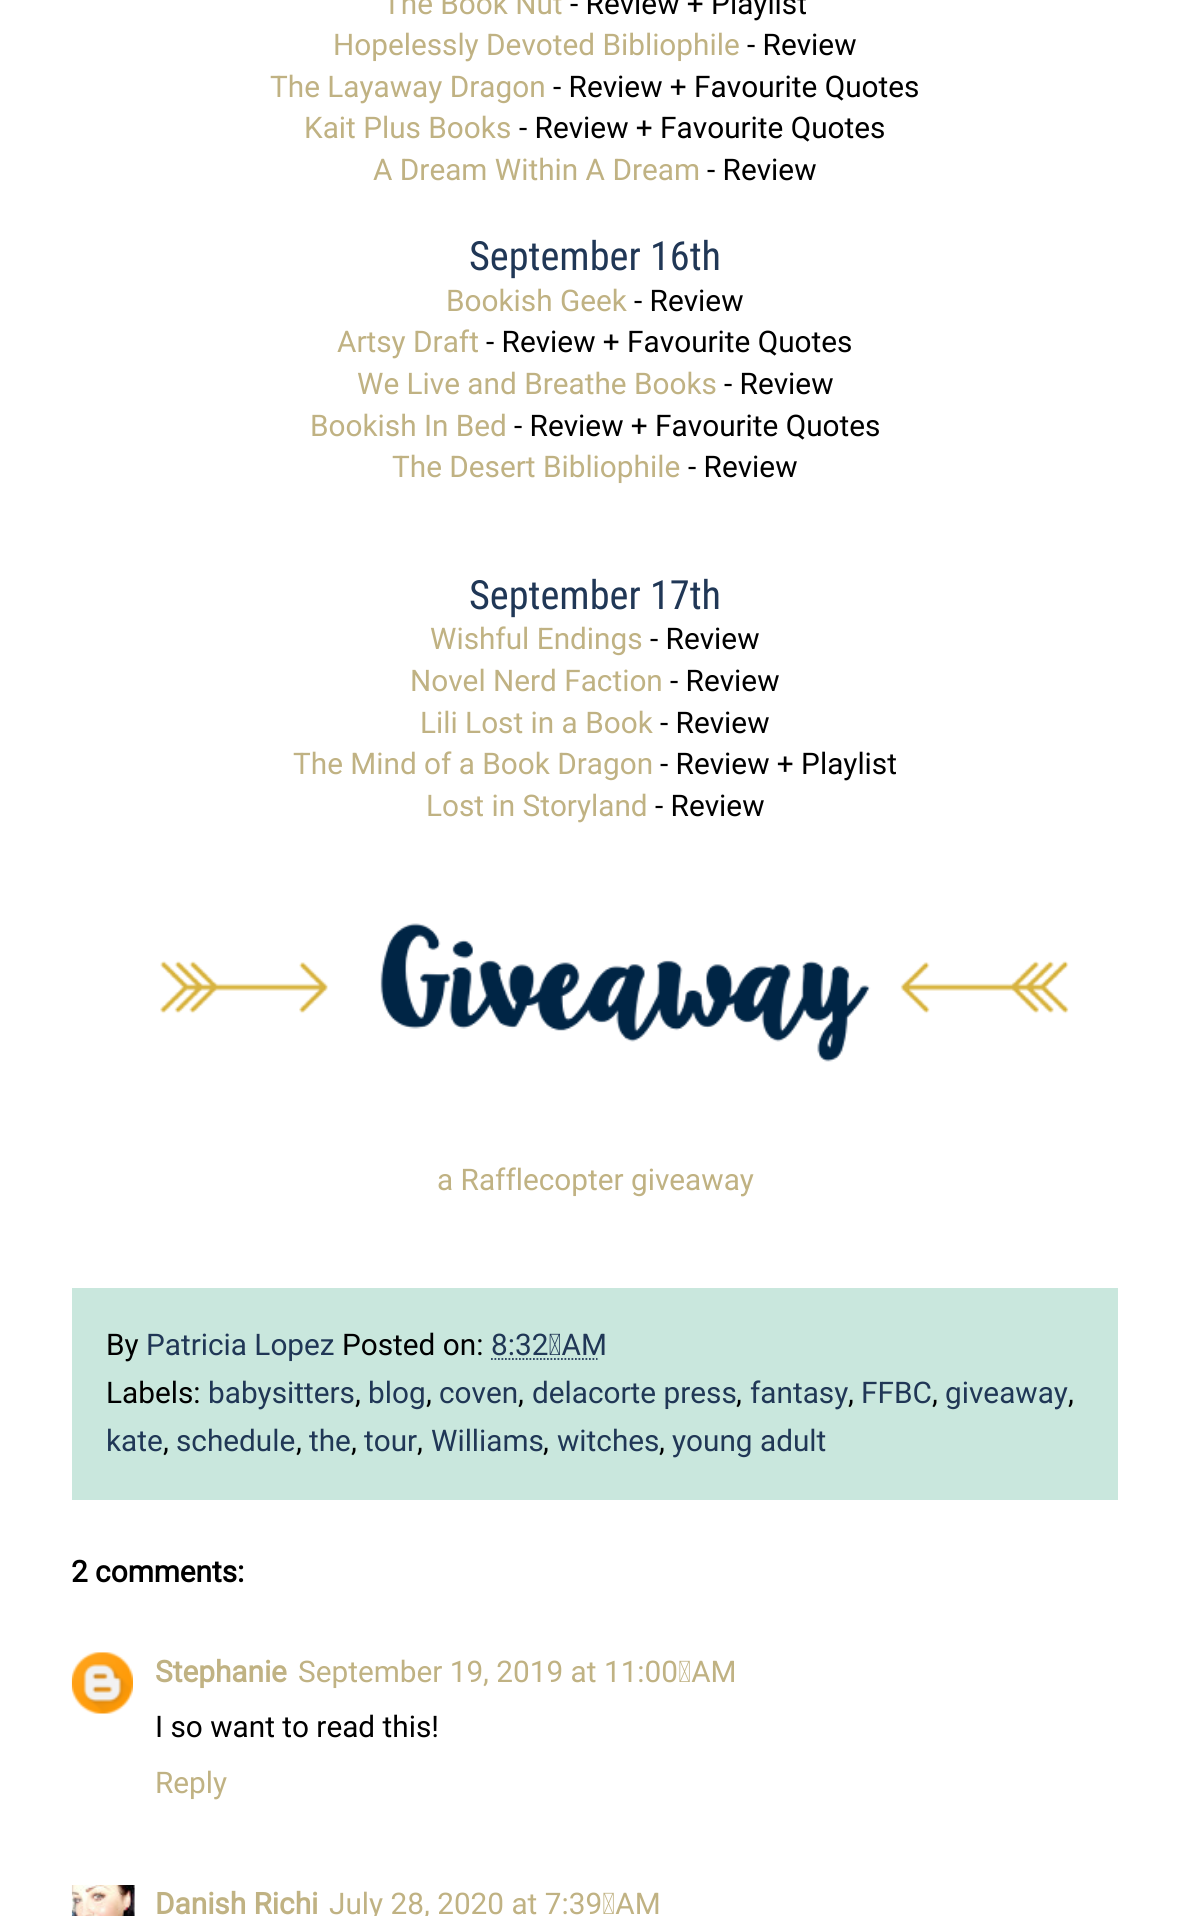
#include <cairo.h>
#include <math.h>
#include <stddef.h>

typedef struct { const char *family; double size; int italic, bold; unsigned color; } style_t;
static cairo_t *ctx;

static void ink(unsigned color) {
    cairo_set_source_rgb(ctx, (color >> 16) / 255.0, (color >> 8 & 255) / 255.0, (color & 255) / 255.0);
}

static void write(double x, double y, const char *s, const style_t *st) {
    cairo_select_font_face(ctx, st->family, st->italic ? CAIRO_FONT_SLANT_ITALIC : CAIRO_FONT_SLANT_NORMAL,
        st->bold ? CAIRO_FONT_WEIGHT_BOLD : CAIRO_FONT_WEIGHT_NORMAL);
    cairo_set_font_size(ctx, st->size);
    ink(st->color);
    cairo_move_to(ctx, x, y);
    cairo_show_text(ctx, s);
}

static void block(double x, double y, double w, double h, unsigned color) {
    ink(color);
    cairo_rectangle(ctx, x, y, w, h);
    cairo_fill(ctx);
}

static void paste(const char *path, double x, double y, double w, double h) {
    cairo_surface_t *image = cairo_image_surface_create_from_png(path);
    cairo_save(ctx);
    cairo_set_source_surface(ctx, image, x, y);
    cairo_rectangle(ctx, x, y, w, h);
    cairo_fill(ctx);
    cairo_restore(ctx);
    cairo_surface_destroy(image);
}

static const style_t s1 = {"Roboto", 29.75, 0, 0, 0xc0b283};
static const style_t s2 = {"Roboto", 29.75, 0, 0, 0x000000};
static const style_t s3 = {"Roboto Condensed", 40.25, 0, 0, 0x203756};
static const style_t s4 = {"Roboto", 29.75, 0, 0, 0x203756};
static const style_t s5 = {"Roboto", 29.75, 0, 1, 0x000000};
static const style_t s6 = {"Roboto", 29.75, 0, 1, 0xc0b283};

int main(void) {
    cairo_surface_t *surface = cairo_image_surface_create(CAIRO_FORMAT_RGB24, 1189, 1916);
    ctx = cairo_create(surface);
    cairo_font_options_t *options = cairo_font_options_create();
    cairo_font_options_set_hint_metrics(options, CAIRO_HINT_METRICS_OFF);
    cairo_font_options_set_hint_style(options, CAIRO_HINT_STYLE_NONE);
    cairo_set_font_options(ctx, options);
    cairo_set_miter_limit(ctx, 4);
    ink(0xffffff);
    cairo_paint(ctx);
    write(383, 14, "The Book Nut", &s1);
    write(570, 14, "- Review + Playlist", &s2);
    write(333, 55, "Hopelessly Devoted Bibliophile", &s1);
    write(747, 55, "- Review", &s2);
    write(270, 97, "The Layaway Dragon", &s1);
    write(553, 97, "- Review + Favourite Quotes", &s2);
    write(304, 138, "Kait Plus Books", &s1);
    write(519, 138, "- Review + Favourite Quotes", &s2);
    write(373, 180, "A Dream Within A Dream", &s1);
    write(707, 180, "- Review", &s2);
    write(469, 270, "September 16th", &s3);
    write(446, 311, "Bookish Geek", &s1);
    write(634, 311, "- Review", &s2);
    write(337, 352, "Artsy Draft", &s1);
    write(486, 352, "- Review + Favourite Quotes", &s2);
    write(357, 394, "We Live and Breathe Books", &s1);
    write(724, 394, "- Review", &s2);
    write(310, 436, "Bookish In Bed", &s1);
    write(514, 436, "- Review + Favourite Quotes", &s2);
    write(392, 477, "The Desert Bibliophile", &s1);
    write(688, 477, "- Review", &s2);
    write(469, 609, "September 17th", &s3);
    write(430, 649, "Wishful Endings", &s1);
    write(650, 649, "- Review", &s2);
    write(410, 691, "Novel Nerd Faction", &s1);
    write(670, 691, "- Review", &s2);
    write(420, 733, "Lili Lost in a Book", &s1);
    write(660, 733, "- Review", &s2);
    write(293, 774, "The Mind of a Book Dragon", &s1);
    write(660, 774, "- Review + Playlist", &s2);
    write(426, 816, "Lost in Storyland", &s1);
    write(655, 816, "- Review", &s2);
    paste("pic1.png", 160, 923, 909, 139);
    write(437, 1190, "a Rafflecopter giveaway", &s1);
    block(72, 1288, 1046, 212, 0xc9e7dd);
    write(106, 1355, "By", &s2);
    write(146, 1355, "Patricia Lopez", &s4);
    write(342, 1355, "Posted on:", &s2);
    write(491, 1355, "8:32 AM", &s4);
    cairo_new_path(ctx);
    cairo_move_to(ctx, 491, 1359);
    cairo_line_to(ctx, 597.5, 1359);
    cairo_set_line_width(ctx, 1.8);
    cairo_set_dash(ctx, (double[]){1.75, 1.75}, 2, 0);
    cairo_stroke(ctx);
    write(106, 1403, "Labels:", &s2);
    write(208, 1403, "babysitters", &s4);
    write(355, 1403, ",", &s2);
    write(368, 1403, "blog", &s4);
    write(426, 1403, ",", &s2);
    write(439, 1403, "coven", &s4);
    write(518, 1403, ",", &s2);
    write(532, 1403, "delacorte press", &s4);
    write(736, 1403, ",", &s2);
    write(750, 1403, "fantasy", &s4);
    write(848, 1403, ",", &s2);
    write(861, 1403, "FFBC", &s4);
    write(932, 1403, ",", &s2);
    write(945, 1403, "giveaway", &s4);
    write(1068, 1403, ",", &s2);
    write(106, 1451, "kate", &s4);
    write(163, 1451, ",", &s2);
    write(176, 1451, "schedule", &s4);
    write(296, 1451, ",", &s2);
    write(309, 1451, "the", &s4);
    write(351, 1451, ",", &s2);
    write(364, 1451, "tour", &s4);
    write(417, 1451, ",", &s2);
    write(431, 1451, "Williams", &s4);
    write(543, 1451, ",", &s2);
    write(557, 1451, "witches", &s4);
    write(659, 1451, ",", &s2);
    write(672, 1451, "young adult", &s4);
    write(71, 1582, "2 comments:", &s5);
    paste("pic2.png", 71, 1652, 62, 62);
    write(155, 1682, "Stephanie", &s6);
    write(298, 1682, "September 19, 2019 at 11:00 AM", &s1);
    write(155, 1737, "I so want to read this!", &s2);
    write(155, 1793, "Reply", &s1);
    paste("pic3.png", 71, 1885, 64, 31);
    write(155, 1914, "Danish Richi", &s6);
    write(329, 1914, "July 28, 2020 at 7:39 AM", &s1);
    cairo_surface_write_to_png(surface, "screenshot.png");
    cairo_font_options_destroy(options);
    cairo_destroy(ctx);
    cairo_surface_destroy(surface);
    return 0;
}
